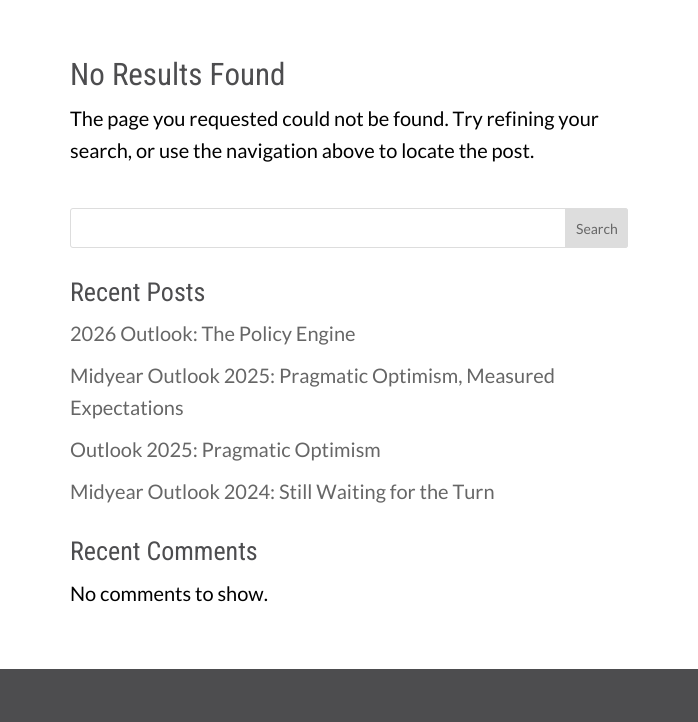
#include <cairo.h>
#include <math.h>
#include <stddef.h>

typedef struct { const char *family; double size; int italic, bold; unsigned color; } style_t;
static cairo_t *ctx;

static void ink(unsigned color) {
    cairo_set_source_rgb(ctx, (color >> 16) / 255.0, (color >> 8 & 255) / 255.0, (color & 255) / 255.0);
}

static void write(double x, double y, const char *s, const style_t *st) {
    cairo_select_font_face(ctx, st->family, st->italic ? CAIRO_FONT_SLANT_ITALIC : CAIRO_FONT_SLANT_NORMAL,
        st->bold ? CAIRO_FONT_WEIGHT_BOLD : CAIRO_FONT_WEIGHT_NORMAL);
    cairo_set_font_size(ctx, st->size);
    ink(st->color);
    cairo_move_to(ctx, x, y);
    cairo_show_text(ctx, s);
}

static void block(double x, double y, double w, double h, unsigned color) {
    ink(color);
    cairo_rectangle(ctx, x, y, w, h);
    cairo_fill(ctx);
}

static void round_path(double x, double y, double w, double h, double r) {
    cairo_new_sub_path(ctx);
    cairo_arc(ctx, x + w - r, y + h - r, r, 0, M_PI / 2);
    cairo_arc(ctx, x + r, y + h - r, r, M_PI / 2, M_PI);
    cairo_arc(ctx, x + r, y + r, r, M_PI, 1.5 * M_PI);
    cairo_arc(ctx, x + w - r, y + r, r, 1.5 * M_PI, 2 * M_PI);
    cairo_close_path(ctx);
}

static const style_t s1 = {"Roboto Condensed", 31, 0, 0, 0x4d4d4f};
static const style_t s2 = {"Lato", 20, 0, 0, 0x000000};
static const style_t s3 = {"Lato", 14, 0, 0, 0x666666};
static const style_t s4 = {"Roboto Condensed", 26, 0, 0, 0x4d4d4f};
static const style_t s5 = {"Lato", 20, 0, 0, 0x666666};

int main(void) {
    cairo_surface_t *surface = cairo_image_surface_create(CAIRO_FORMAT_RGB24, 698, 722);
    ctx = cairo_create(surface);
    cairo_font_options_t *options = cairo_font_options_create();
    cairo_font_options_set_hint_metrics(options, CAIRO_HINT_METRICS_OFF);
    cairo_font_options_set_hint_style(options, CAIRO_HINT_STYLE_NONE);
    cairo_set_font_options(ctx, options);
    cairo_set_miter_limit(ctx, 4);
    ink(0xffffff);
    cairo_paint(ctx);
    write(70, 85, "No Results Found", &s1);
    write(70, 126, "The page you requested could not be found. Try refining your", &s2);
    write(70, 158, "search, or use the navigation above to locate the post.", &s2);
    round_path(70.5, 208.5, 557, 39, 2.5);
    ink(0xdddddd);
    cairo_set_line_width(ctx, 1);
    cairo_stroke(ctx);
    cairo_new_path(ctx);
    cairo_move_to(ctx, 565.5, 208.5);
    cairo_line_to(ctx, 625, 208.5);
    cairo_curve_to(ctx, 626.5, 208.5, 627.5, 209.5, 627.5, 211);
    cairo_line_to(ctx, 627.5, 245);
    cairo_curve_to(ctx, 627.5, 246.5, 626.5, 247.5, 625, 247.5);
    cairo_line_to(ctx, 565.5, 247.5);
    cairo_close_path(ctx);
    cairo_fill_preserve(ctx);
    cairo_stroke(ctx);
    write(576, 234, "Search", &s3);
    write(70, 301, "Recent Posts", &s4);
    write(70, 341, "2026 Outlook: The Policy Engine", &s5);
    write(70, 383, "Midyear Outlook 2025: Pragmatic Optimism, Measured", &s5);
    write(70, 415, "Expectations", &s5);
    write(70, 457, "Outlook 2025: Pragmatic Optimism", &s5);
    write(70, 499, "Midyear Outlook 2024: Still Waiting for the Turn", &s5);
    write(70, 560, "Recent Comments", &s4);
    write(70, 601, "No comments to show.", &s2);
    block(0, 669, 698, 53, 0x4d4d4f);
    cairo_surface_write_to_png(surface, "screenshot.png");
    cairo_font_options_destroy(options);
    cairo_destroy(ctx);
    cairo_surface_destroy(surface);
    return 0;
}
